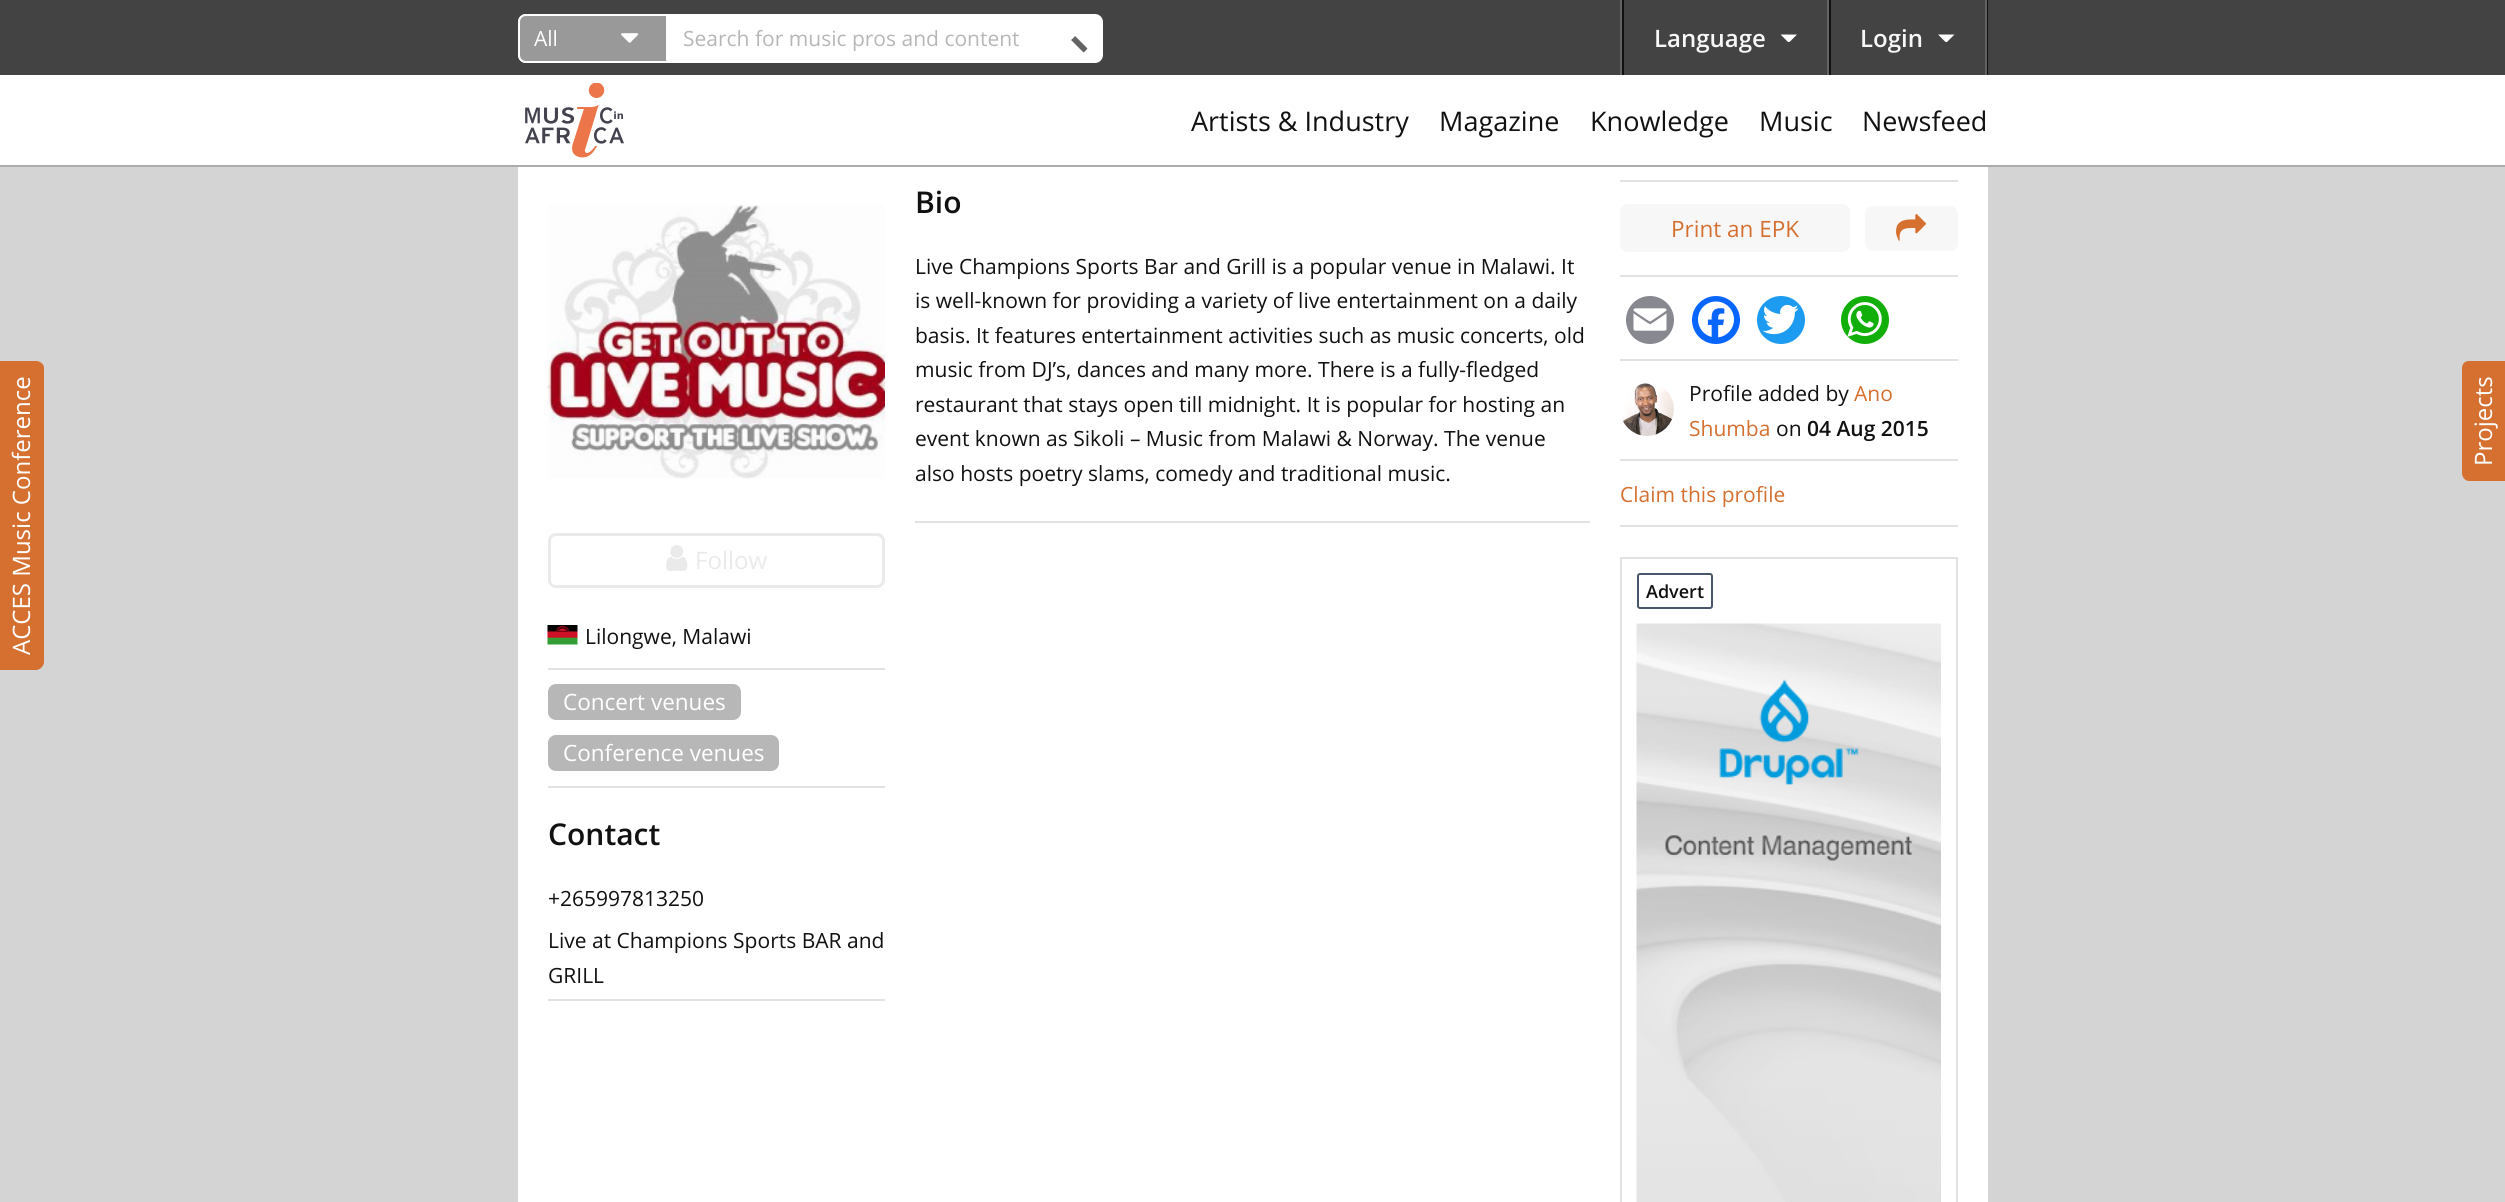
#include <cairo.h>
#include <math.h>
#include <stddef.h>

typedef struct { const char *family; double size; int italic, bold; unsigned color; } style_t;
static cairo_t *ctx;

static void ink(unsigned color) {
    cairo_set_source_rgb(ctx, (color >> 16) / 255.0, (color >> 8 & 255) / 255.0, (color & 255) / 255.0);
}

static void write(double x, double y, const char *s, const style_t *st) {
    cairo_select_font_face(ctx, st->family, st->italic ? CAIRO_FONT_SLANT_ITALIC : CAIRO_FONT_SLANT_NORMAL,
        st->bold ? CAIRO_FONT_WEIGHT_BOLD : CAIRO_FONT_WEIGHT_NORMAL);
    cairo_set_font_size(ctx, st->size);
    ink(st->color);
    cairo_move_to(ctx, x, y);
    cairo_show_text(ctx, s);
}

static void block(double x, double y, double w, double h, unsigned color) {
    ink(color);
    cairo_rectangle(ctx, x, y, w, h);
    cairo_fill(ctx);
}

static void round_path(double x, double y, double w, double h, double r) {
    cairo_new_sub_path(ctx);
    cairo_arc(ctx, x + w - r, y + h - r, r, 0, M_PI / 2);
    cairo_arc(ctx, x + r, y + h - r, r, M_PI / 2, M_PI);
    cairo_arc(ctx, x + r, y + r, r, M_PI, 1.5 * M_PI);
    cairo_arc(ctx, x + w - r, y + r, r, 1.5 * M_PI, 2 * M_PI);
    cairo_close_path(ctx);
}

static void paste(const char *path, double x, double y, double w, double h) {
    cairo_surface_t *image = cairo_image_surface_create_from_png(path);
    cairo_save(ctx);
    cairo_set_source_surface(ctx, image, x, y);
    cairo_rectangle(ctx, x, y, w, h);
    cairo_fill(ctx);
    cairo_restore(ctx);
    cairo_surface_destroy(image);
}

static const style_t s1 = {"Open Sans", 21, 0, 0, 0xffffff};
static const style_t s2 = {"Open Sans", 21, 0, 0, 0xb7b7b7};
static const style_t s3 = {"Open Sans SemiBold", 24, 0, 0, 0xf7f7f7};
static const style_t s4 = {"Open Sans", 27, 0, 0, 0x111111};
static const style_t s5 = {"Open Sans", 24, 0, 0, 0xffffff};
static const style_t s6 = {"Open Sans SemiBold", 30, 0, 0, 0x111111};
static const style_t s7 = {"Open Sans", 21, 0, 0, 0x111111};
static const style_t s8 = {"Open Sans", 22.5, 0, 0, 0xd57031};
static const style_t s9 = {"Open Sans", 21, 0, 0, 0xd57031};
static const style_t s10 = {"Open Sans SemiBold", 21, 0, 0, 0x111111};
static const style_t s11 = {"Open Sans SemiBold", 18, 0, 0, 0x111111};
static const style_t s12 = {"Open Sans", 24, 0, 0, 0xeaeaea};
static const style_t s13 = {"Open Sans", 22.5, 0, 0, 0xffffff};

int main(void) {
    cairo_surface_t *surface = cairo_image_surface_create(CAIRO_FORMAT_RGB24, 2505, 1202);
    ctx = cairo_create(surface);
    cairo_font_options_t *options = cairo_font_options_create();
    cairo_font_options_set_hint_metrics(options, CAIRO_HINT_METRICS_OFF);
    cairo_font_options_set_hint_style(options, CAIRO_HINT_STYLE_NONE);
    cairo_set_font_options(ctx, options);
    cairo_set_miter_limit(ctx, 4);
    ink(0xd4d4d4);
    cairo_paint(ctx);
    block(0, 0, 2505, 75, 0x434343);
    ink(0xffffff);
    round_path(518, 14, 585, 49, 8);
    cairo_fill(ctx);
    ink(0x999999);
    cairo_new_path(ctx);
    cairo_move_to(ctx, 526, 15);
    cairo_line_to(ctx, 667, 15);
    cairo_line_to(ctx, 667, 62);
    cairo_line_to(ctx, 526, 62);
    cairo_curve_to(ctx, 522, 62, 519, 59, 519, 55);
    cairo_line_to(ctx, 519, 22);
    cairo_curve_to(ctx, 519, 18, 522, 15, 526, 15);
    cairo_close_path(ctx);
    cairo_fill_preserve(ctx);
    ink(0xffffff);
    cairo_stroke(ctx);
    write(534, 46, "All", &s1);
    paste("pic1.png", 621, 33, 18, 10);
    write(683, 46, "Search for music pros and content", &s2);
    ink(0x636363);
    cairo_new_path(ctx);
    cairo_move_to(ctx, 1071, 40);
    cairo_curve_to(ctx, 1072.5, 39, 1074, 37.5, 1075, 36);
    cairo_line_to(ctx, 1087.5, 48.5);
    cairo_curve_to(ctx, 1086.5, 50, 1085, 51.5, 1083.5, 52.5);
    cairo_close_path(ctx);
    cairo_fill(ctx);
    block(1987, 0, 1, 75, 0x111111);
    block(1827, 0, 2, 75, 0x636363);
    block(1620, 0, 2, 75, 0x636363);
    block(1622, 0, 2, 75, 0x111111);
    write(1654, 47, "Language", &s3);
    ink(0xffffff);
    cairo_new_path(ctx);
    cairo_move_to(ctx, 1780.5, 34.5);
    cairo_line_to(ctx, 1797, 34.5);
    cairo_line_to(ctx, 1789.5, 42);
    cairo_line_to(ctx, 1788, 42);
    cairo_close_path(ctx);
    cairo_fill(ctx);
    block(1985, 0, 2, 75, 0x636363);
    block(1829, 0, 2, 75, 0x111111);
    write(1860, 47, "Login", &s3);
    ink(0xffffff);
    cairo_new_path(ctx);
    cairo_move_to(ctx, 1938, 34.5);
    cairo_line_to(ctx, 1954.5, 34.5);
    cairo_line_to(ctx, 1947, 42);
    cairo_line_to(ctx, 1945.5, 42);
    cairo_close_path(ctx);
    cairo_fill(ctx);
    block(0, 75, 2505, 90, 0xffffff);
    block(0, 165, 2505, 2, 0xacacac);
    paste("pic2.png", 525, 83, 99, 75);
    write(1191, 131, "Artists & Industry", &s4);
    write(1439, 131, "Magazine", &s4);
    write(1590, 131, "Knowledge", &s4);
    write(1759, 131, "Music", &s4);
    write(1862, 131, "Newsfeed", &s4);
    ink(0xd57031);
    cairo_new_path(ctx);
    cairo_move_to(ctx, 0, 670);
    cairo_line_to(ctx, 0, 361);
    cairo_line_to(ctx, 36, 361);
    cairo_curve_to(ctx, 40, 361, 44, 364, 44, 368);
    cairo_line_to(ctx, 44, 662);
    cairo_curve_to(ctx, 44, 666, 40, 670, 36, 670);
    cairo_close_path(ctx);
    cairo_fill(ctx);
    cairo_save(ctx);
    cairo_translate(ctx, 30, 655);
    cairo_rotate(ctx, -90 * M_PI / 180);
    write(0, 0, "ACCES Music Conference", &s5);
    cairo_restore(ctx);
    block(518, 167, 1470, 1035, 0xffffff);
    block(915, 521, 675, 2, 0xe2e2e2);
    write(915, 213, "Bio", &s6);
    write(915, 274, "Live Champions Sports Bar and Grill is a popular venue in Malawi. It", &s7);
    write(915, 308, "is well-known for providing a variety of live entertainment on a daily", &s7);
    write(915, 343, "basis. It features entertainment activities such as music concerts, old", &s7);
    write(915, 377, "music from DJ’s, dances and many more. There is a fully-fledged", &s7);
    write(915, 412, "restaurant that stays open till midnight. It is popular for hosting an", &s7);
    write(915, 446, "event known as Sikoli – Music from Malawi & Norway. The venue", &s7);
    write(915, 481, "also hosts poetry slams, comedy and traditional music.", &s7);
    block(1620, 180, 338, 2, 0xe2e2e2);
    block(1620, 275, 338, 2, 0xe2e2e2);
    ink(0xf7f7f7);
    round_path(1620, 204, 230, 48, 8);
    cairo_fill(ctx);
    write(1671, 237, "Print an EPK", &s8);
    ink(0xf7f7f7);
    round_path(1865, 206, 93, 45, 8);
    cairo_fill(ctx);
    paste("pic3.png", 1896, 214, 30, 27);
    block(1620, 359, 338, 2, 0xe2e2e2);
    ink(0x888990);
    cairo_arc(ctx, 1650, 320, 24, 0, 2 * M_PI);
    cairo_fill(ctx);
    paste("pic4.png", 1633, 308, 34, 23);
    ink(0x0866ff);
    cairo_arc(ctx, 1716, 320, 24, 0, 2 * M_PI);
    cairo_fill(ctx);
    paste("pic5.png", 1698, 301, 36, 37);
    ink(0x1d9bf0);
    cairo_arc(ctx, 1781, 320, 24, 0, 2 * M_PI);
    cairo_fill(ctx);
    paste("pic6.png", 1762, 304, 37, 31);
    ink(0x12af0a);
    cairo_arc(ctx, 1865, 320, 24, 0, 2 * M_PI);
    cairo_fill(ctx);
    paste("pic7.png", 1847, 302, 35, 35);
    block(1620, 459, 338, 2, 0xe2e2e2);
    paste("pic8.png", 1622, 383, 52, 53);
    write(1689, 401, "Profile added by", &s7);
    write(1854, 401, "Ano", &s9);
    write(1689, 436, "Shumba", &s9);
    write(1776, 436, "on", &s7);
    write(1807, 436, "04 Aug 2015", &s10);
    block(1620, 525, 338, 2, 0xe2e2e2);
    write(1620, 502, "Claim this profile", &s9);
    cairo_rectangle(ctx, 1621, 558, 336, 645);
    ink(0xe2e2e2);
    cairo_stroke(ctx);
    round_path(1638, 574, 74, 34, 2);
    ink(0x475669);
    cairo_stroke(ctx);
    write(1646, 598, "Advert", &s11);
    paste("pic9.png", 1636, 623, 305, 579);
    paste("pic10.png", 547, 204, 338, 275);
    round_path(549.5, 534.5, 334, 52, 6.5);
    ink(0xeaeaea);
    cairo_set_line_width(ctx, 3);
    cairo_stroke(ctx);
    paste("pic11.png", 666, 545, 22, 26);
    write(695, 569, "Follow", &s12);
    block(548, 668, 337, 2, 0xe2e2e2);
    paste("pic12.png", 547, 625, 31, 20);
    write(585, 644, "Lilongwe, Malawi", &s7);
    block(548, 786, 337, 2, 0xe2e2e2);
    ink(0xb7b7b7);
    round_path(548, 684, 193, 36, 8);
    cairo_fill(ctx);
    write(563, 710, "Concert venues", &s13);
    ink(0xb7b7b7);
    round_path(548, 735, 231, 36, 8);
    cairo_fill(ctx);
    write(563, 761, "Conference venues", &s13);
    block(548, 999, 337, 2, 0xe2e2e2);
    write(548, 845, "Contact", &s6);
    write(548, 906, "+265997813250", &s7);
    write(548, 948, "Live at Champions Sports BAR and", &s7);
    write(548, 983, "GRILL", &s7);
    ink(0xd57031);
    cairo_new_path(ctx);
    cairo_move_to(ctx, 2462, 473);
    cairo_line_to(ctx, 2462, 368);
    cairo_curve_to(ctx, 2462, 364, 2465, 361, 2469, 361);
    cairo_line_to(ctx, 2505, 361);
    cairo_line_to(ctx, 2505, 481);
    cairo_line_to(ctx, 2469, 481);
    cairo_curve_to(ctx, 2465, 481, 2462, 477, 2462, 473);
    cairo_close_path(ctx);
    cairo_fill(ctx);
    cairo_save(ctx);
    cairo_translate(ctx, 2492, 466);
    cairo_rotate(ctx, -90 * M_PI / 180);
    write(0, 0, "Projects", &s5);
    cairo_restore(ctx);
    cairo_surface_write_to_png(surface, "screenshot.png");
    cairo_font_options_destroy(options);
    cairo_destroy(ctx);
    cairo_surface_destroy(surface);
    return 0;
}
